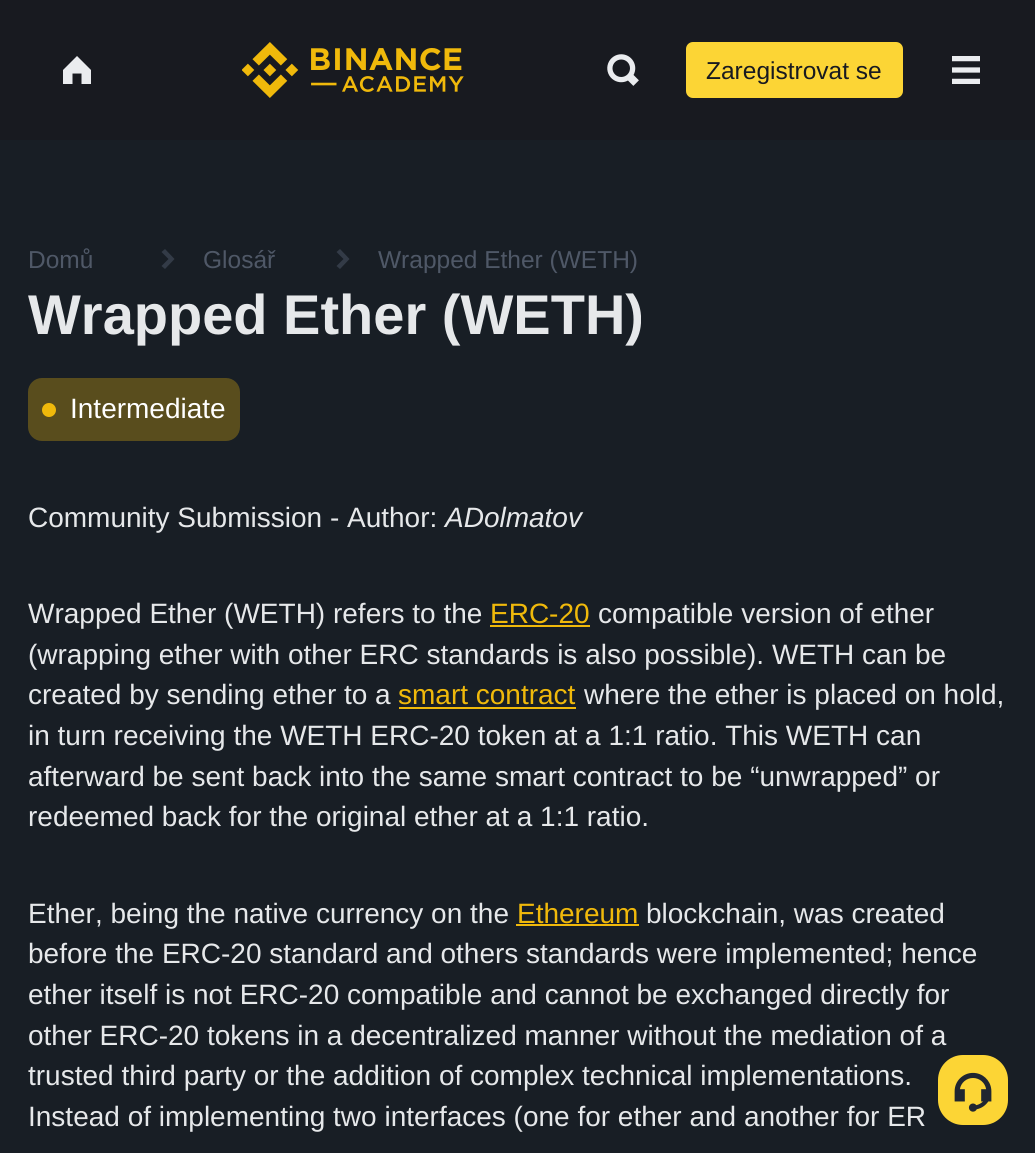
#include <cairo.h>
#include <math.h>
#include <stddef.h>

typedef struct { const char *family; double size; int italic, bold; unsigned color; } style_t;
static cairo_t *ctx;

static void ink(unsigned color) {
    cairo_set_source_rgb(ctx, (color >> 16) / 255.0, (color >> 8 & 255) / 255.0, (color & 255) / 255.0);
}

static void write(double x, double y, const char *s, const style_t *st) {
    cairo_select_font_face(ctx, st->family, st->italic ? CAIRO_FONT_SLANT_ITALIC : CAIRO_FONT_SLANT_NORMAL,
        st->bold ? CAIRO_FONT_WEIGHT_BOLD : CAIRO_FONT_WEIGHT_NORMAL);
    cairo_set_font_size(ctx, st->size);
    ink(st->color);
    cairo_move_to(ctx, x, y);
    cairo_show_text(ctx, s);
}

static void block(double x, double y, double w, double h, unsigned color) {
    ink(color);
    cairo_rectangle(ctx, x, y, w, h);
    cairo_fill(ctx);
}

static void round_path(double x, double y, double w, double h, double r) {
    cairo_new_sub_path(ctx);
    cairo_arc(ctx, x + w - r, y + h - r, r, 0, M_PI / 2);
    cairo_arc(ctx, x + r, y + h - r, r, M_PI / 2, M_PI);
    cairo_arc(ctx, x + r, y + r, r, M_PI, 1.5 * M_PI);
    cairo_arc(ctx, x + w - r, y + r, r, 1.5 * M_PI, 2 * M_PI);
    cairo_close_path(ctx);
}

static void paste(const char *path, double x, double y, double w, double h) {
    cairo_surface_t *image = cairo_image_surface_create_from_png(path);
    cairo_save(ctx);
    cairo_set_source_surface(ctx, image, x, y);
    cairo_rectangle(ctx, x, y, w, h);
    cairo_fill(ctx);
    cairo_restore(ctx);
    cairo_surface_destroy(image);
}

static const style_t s1 = {"Liberation Sans", 24.5, 0, 0, 0x181a20};
static const style_t s2 = {"Liberation Sans", 24.5, 0, 0, 0x4f5867};
static const style_t s3 = {"Liberation Sans", 56, 0, 1, 0xe6e8ea};
static const style_t s4 = {"Liberation Sans", 28, 0, 0, 0xffffff};
static const style_t s5 = {"Liberation Sans", 28, 0, 0, 0xe6e8ea};
static const style_t s6 = {"Liberation Sans", 28, 1, 0, 0xe6e8ea};
static const style_t s7 = {"Liberation Sans", 28, 0, 0, 0xf0b90b};

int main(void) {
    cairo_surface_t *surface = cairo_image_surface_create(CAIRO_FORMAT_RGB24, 1035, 1153);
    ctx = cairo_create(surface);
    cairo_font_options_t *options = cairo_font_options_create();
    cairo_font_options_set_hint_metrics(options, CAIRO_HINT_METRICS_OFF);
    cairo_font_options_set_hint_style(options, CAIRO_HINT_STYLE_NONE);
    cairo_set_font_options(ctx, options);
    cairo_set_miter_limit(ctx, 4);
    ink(0x181e25);
    cairo_paint(ctx);
    block(0, 0, 1035, 140, 0x181a20);
    ink(0xeaecef);
    cairo_set_fill_rule(ctx, CAIRO_FILL_RULE_EVEN_ODD);
    cairo_new_path(ctx);
    cairo_move_to(ctx, 63, 70);
    cairo_line_to(ctx, 63, 84);
    cairo_line_to(ctx, 72.5, 84);
    cairo_line_to(ctx, 72.5, 73.5);
    cairo_line_to(ctx, 81.5, 73.5);
    cairo_line_to(ctx, 81.5, 84);
    cairo_line_to(ctx, 91, 84);
    cairo_line_to(ctx, 91, 70);
    cairo_line_to(ctx, 77, 56);
    cairo_close_path(ctx);
    cairo_fill(ctx);
    paste("pic1.png", 242, 42, 222, 56);
    paste("pic2.png", 607, 54, 32, 32);
    ink(0xfcd535);
    round_path(686, 42, 217, 56, 7);
    cairo_fill(ctx);
    write(706, 79, "Zaregistrovat se", &s1);
    paste("pic3.png", 952, 56, 28, 28);
    write(28, 268, "Domů", &s2);
    ink(0x333b47);
    cairo_new_path(ctx);
    cairo_move_to(ctx, 168.5, 259);
    cairo_line_to(ctx, 161.5, 266);
    cairo_line_to(ctx, 165, 269);
    cairo_line_to(ctx, 174.5, 259);
    cairo_line_to(ctx, 165, 249);
    cairo_line_to(ctx, 161.5, 252);
    cairo_close_path(ctx);
    cairo_fill(ctx);
    write(203, 268, "Glosář", &s2);
    ink(0x333b47);
    cairo_new_path(ctx);
    cairo_move_to(ctx, 343.5, 259);
    cairo_line_to(ctx, 336.5, 266);
    cairo_line_to(ctx, 340, 269);
    cairo_line_to(ctx, 349.5, 259);
    cairo_line_to(ctx, 340, 249);
    cairo_line_to(ctx, 336.5, 252);
    cairo_close_path(ctx);
    cairo_fill(ctx);
    write(378, 268, "Wrapped Ether (WETH)", &s2);
    write(28, 334, "Wrapped Ether (WETH)", &s3);
    ink(0x594d1d);
    round_path(28, 378, 212, 63, 14);
    cairo_fill(ctx);
    ink(0xf0b90b);
    cairo_arc(ctx, 49, 410, 7, 0, 2 * M_PI);
    cairo_fill(ctx);
    write(70, 418, "Intermediate", &s4);
    write(28, 527, "Community Submission - Author:", &s5);
    write(445, 527, "ADolmatov", &s6);
    write(28, 623, "Wrapped Ether (WETH) refers to the", &s5);
    write(490, 623, "ERC-20", &s7);
    block(490, 625, 100, 2, 0xf0b90b);
    write(598, 623, "compatible version of ether", &s5);
    write(28, 664, "(wrapping ether with other ERC standards is also possible). WETH can be", &s5);
    write(28, 704, "created by sending ether to a", &s5);
    write(398, 704, "smart contract", &s7);
    block(399, 707, 177, 2, 0xf0b90b);
    write(584, 704, "where the ether is placed on hold,", &s5);
    write(28, 745, "in turn receiving the WETH ERC-20 token at a 1:1 ratio. This WETH can", &s5);
    write(28, 786, "afterward be sent back into the same smart contract to be “unwrapped” or", &s5);
    write(28, 826, "redeemed back for the original ether at a 1:1 ratio.", &s5);
    write(28, 923, "Ether, being the native currency on the", &s5);
    write(517, 923, "Ethereum", &s7);
    block(516, 924, 123, 2, 0xf0b90b);
    write(646, 923, "blockchain, was created", &s5);
    write(28, 963, "before the ERC-20 standard and others standards were implemented; hence", &s5);
    write(28, 1004, "ether itself is not ERC-20 compatible and cannot be exchanged directly for", &s5);
    write(28, 1045, "other ERC-20 tokens in a decentralized manner without the mediation of a", &s5);
    write(28, 1085, "trusted third party or the addition of complex technical implementations.", &s5);
    write(28, 1126, "Instead of implementing two interfaces (one for ether and another for ER", &s5);
    ink(0xfcd535);
    round_path(938, 1055, 70, 70, 25);
    cairo_fill(ctx);
    paste("pic4.png", 954, 1072, 38, 40);
    cairo_surface_write_to_png(surface, "screenshot.png");
    cairo_font_options_destroy(options);
    cairo_destroy(ctx);
    cairo_surface_destroy(surface);
    return 0;
}
